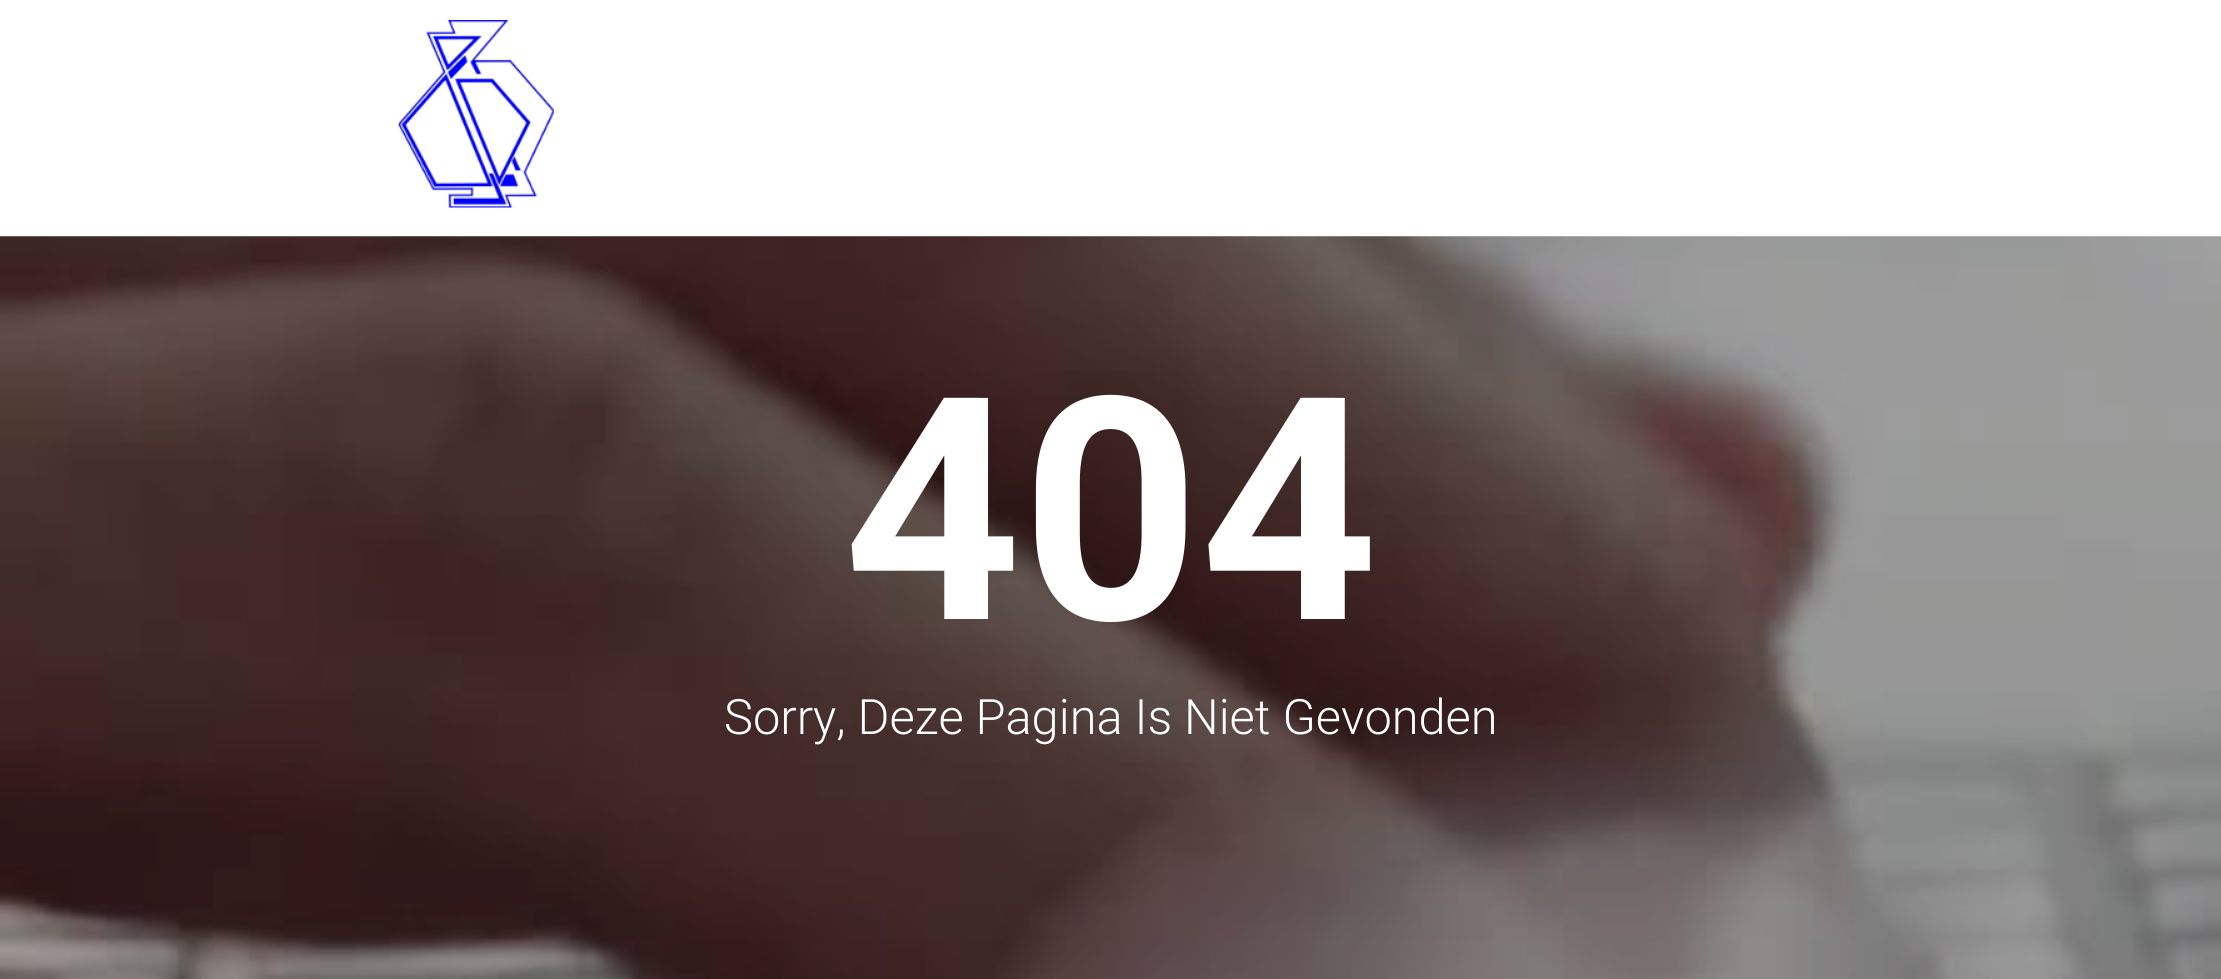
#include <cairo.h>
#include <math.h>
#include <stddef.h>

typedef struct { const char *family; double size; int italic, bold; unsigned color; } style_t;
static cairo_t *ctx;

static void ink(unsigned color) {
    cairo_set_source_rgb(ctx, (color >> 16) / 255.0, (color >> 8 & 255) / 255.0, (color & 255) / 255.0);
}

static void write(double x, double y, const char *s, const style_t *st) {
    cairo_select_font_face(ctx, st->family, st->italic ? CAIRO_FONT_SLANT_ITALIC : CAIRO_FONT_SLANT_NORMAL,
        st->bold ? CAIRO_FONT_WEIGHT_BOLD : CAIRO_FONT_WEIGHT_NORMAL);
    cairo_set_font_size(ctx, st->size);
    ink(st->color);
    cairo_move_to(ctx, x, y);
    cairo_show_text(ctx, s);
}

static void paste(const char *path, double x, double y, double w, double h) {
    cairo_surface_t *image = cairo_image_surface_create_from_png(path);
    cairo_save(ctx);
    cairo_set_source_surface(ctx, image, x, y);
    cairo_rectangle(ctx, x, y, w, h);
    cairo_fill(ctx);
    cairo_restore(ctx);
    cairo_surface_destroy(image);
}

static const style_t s1 = {"Roboto", 311, 0, 1, 0xffffff};
static const style_t s2 = {"Roboto Light", 48.75, 0, 0, 0xffffff};

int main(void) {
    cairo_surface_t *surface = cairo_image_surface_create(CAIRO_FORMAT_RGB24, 2221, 979);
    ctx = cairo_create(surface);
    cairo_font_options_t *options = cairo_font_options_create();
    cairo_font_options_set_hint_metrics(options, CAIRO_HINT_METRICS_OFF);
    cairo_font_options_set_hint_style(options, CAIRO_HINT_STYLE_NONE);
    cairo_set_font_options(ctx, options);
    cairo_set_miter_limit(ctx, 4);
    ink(0xffffff);
    cairo_paint(ctx);
    paste("pic1.png", 398, 20, 156, 188);
    paste("pic2.png", 0, 236, 2221, 743);
    write(843, 619, "404", &s1);
    write(724, 734, "Sorry, Deze Pagina Is Niet Gevonden", &s2);
    cairo_surface_write_to_png(surface, "screenshot.png");
    cairo_font_options_destroy(options);
    cairo_destroy(ctx);
    cairo_surface_destroy(surface);
    return 0;
}
